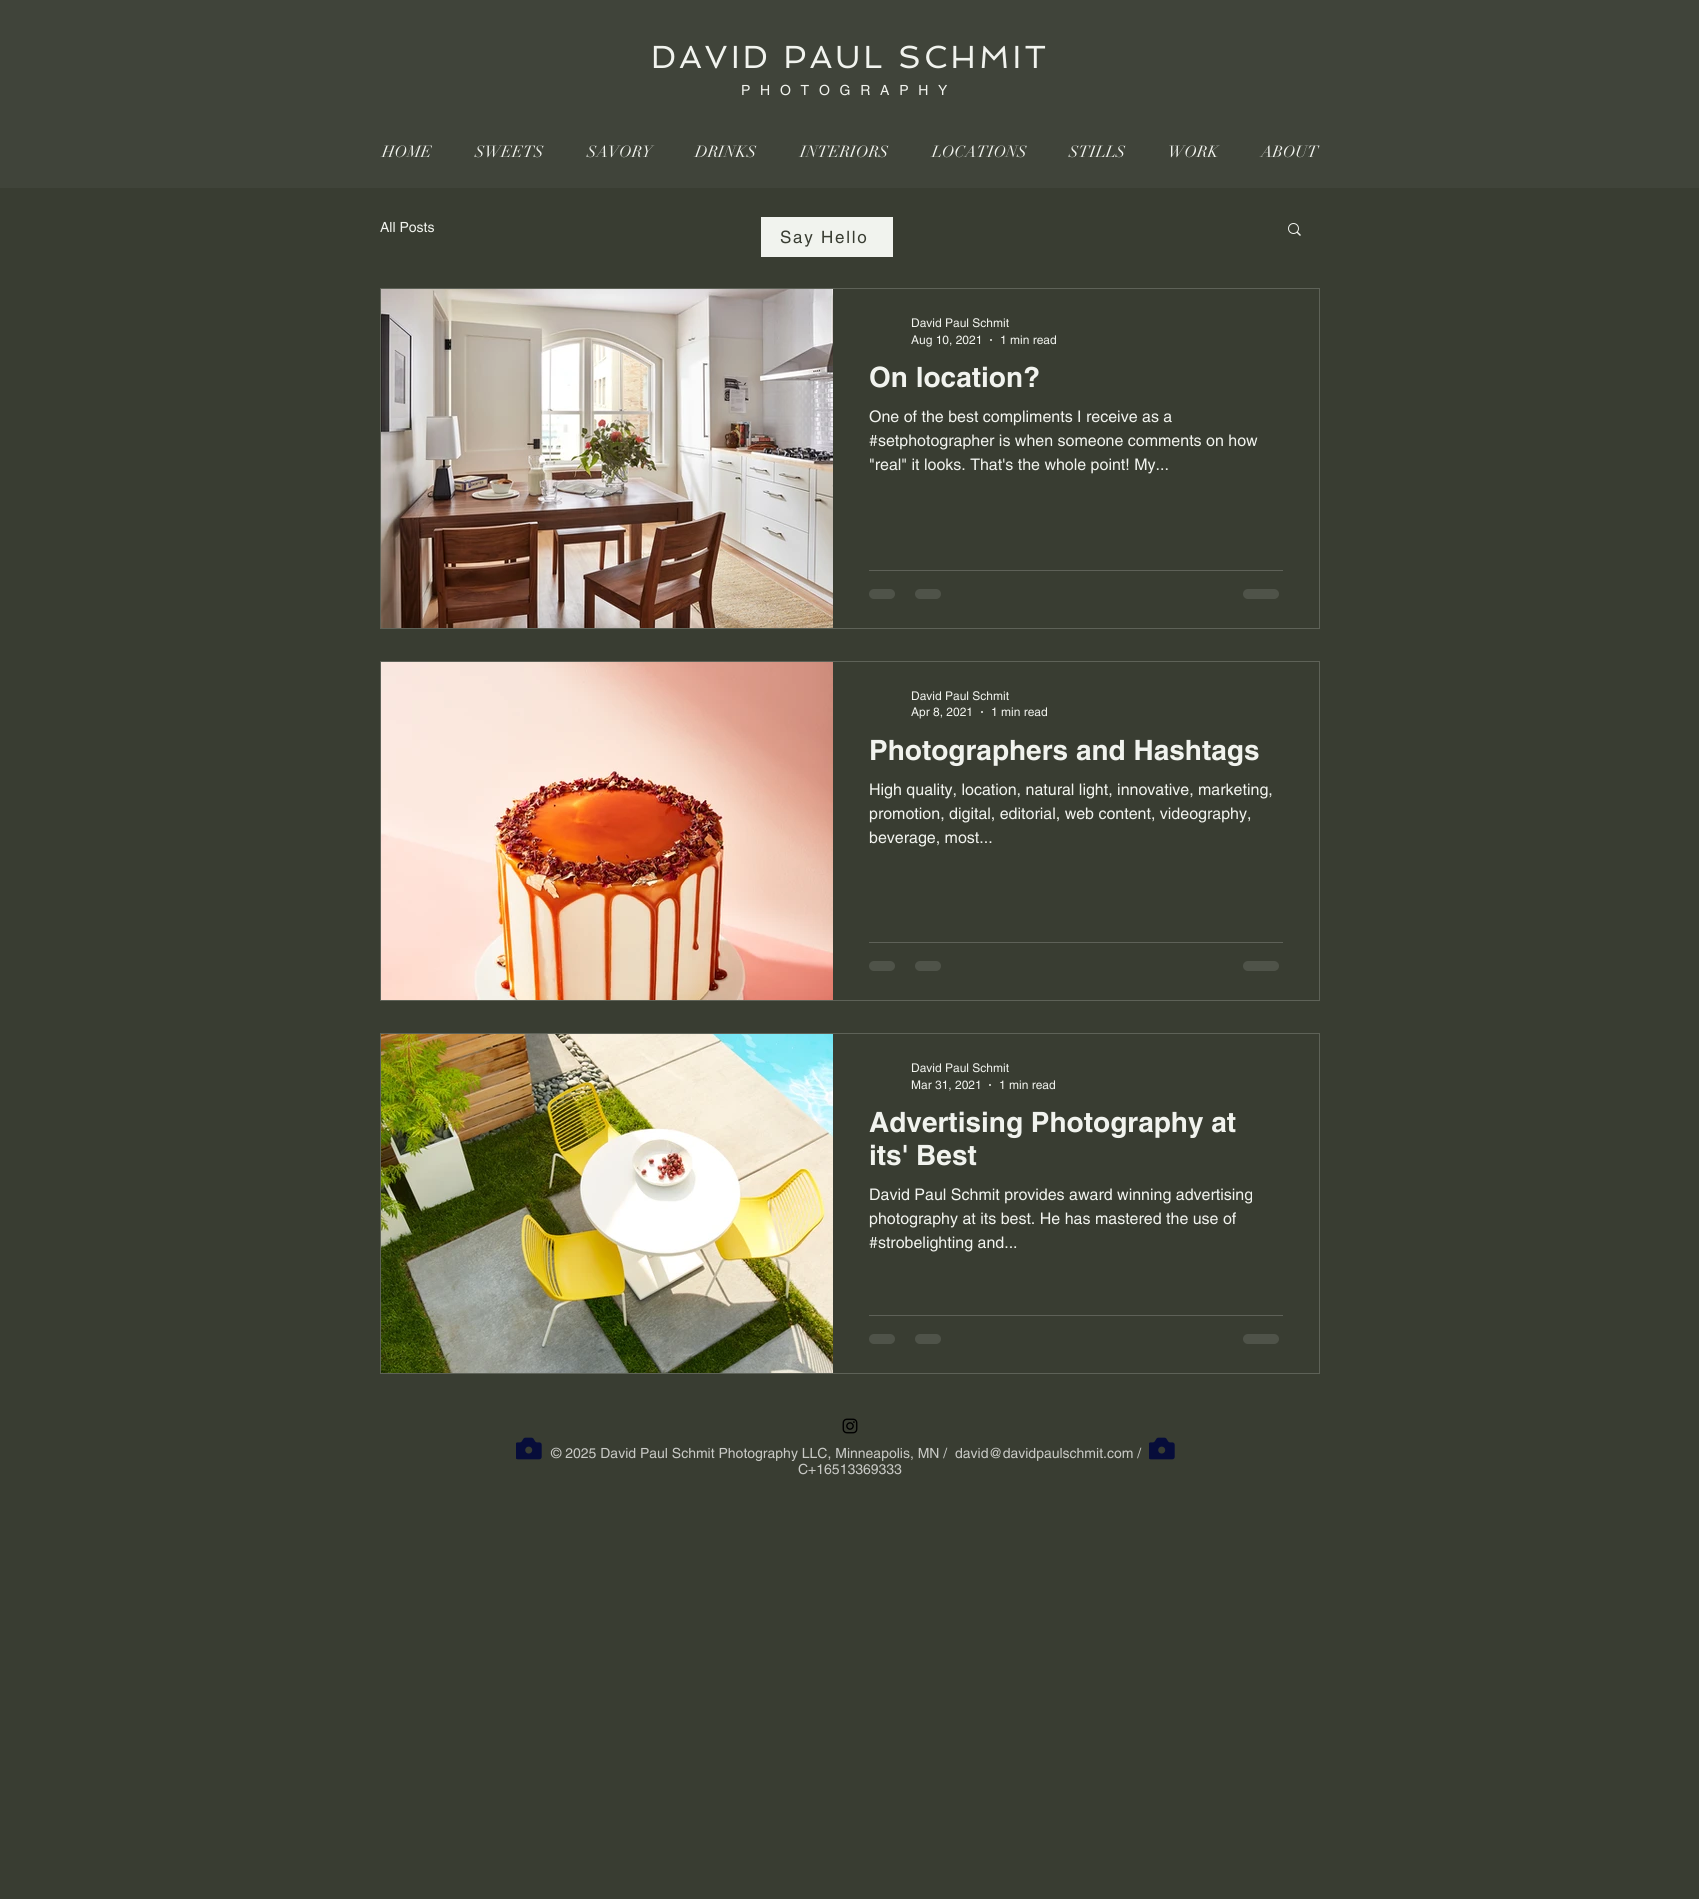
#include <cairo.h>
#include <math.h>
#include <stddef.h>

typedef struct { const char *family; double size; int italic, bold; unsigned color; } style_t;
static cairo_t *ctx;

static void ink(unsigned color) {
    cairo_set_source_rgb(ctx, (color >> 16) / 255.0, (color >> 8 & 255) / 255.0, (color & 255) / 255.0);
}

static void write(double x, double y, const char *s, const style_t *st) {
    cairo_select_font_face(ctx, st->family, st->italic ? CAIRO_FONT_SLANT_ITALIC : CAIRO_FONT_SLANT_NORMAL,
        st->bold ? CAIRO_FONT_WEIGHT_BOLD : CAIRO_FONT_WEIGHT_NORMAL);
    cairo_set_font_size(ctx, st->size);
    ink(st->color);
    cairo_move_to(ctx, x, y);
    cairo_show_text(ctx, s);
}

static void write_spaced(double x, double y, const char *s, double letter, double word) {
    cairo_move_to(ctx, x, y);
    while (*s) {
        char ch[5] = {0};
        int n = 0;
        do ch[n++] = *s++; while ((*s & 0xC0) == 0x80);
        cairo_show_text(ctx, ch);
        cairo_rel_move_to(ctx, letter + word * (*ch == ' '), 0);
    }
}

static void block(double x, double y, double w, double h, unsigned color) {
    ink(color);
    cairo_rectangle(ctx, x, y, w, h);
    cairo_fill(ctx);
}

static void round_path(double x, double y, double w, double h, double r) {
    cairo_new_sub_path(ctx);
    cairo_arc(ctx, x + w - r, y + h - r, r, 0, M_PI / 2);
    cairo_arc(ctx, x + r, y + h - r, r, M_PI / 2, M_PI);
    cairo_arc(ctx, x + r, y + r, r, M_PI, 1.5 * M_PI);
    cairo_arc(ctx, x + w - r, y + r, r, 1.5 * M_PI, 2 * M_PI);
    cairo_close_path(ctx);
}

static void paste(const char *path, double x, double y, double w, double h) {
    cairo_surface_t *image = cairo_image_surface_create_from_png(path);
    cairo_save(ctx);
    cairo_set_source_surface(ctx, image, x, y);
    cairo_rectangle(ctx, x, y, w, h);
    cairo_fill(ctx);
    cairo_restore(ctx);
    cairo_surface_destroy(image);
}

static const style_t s1 = {"didot", 16, 0, 0, 0xf1f3ee};
static const style_t s2 = {"helvetica", 14, 0, 0, 0xf1f3ee};
static const style_t s3 = {"helvetica", 12, 0, 0, 0xf1f3ee};
static const style_t s4 = {"helvetica", 28, 0, 1, 0xf1f3ee};
static const style_t s5 = {"helvetica", 16, 0, 0, 0xf1f3ee};
static const style_t s6 = {"helvetica", 14, 0, 0, 0xc8c9c5};

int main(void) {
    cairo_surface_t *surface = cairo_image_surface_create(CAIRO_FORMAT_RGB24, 1699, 1899);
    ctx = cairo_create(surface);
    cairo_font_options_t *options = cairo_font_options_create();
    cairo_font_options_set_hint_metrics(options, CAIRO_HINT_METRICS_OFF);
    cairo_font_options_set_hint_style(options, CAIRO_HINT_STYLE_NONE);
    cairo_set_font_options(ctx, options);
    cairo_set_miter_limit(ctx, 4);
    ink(0x393d32);
    cairo_paint(ctx);
    block(0, 0, 1699, 188, 0x40443a);
    cairo_select_font_face(ctx, "Spinnaker", CAIRO_FONT_SLANT_NORMAL, CAIRO_FONT_WEIGHT_NORMAL);
    cairo_set_font_size(ctx, 32);
    ink(0xf1f3ee);
    write_spaced(651, 68, "DAVID PAUL SCHMIT", 3.25, 0);
    cairo_select_font_face(ctx, "helvetica", CAIRO_FONT_SLANT_NORMAL, CAIRO_FONT_WEIGHT_NORMAL);
    cairo_set_font_size(ctx, 14);
    write_spaced(741, 95, "PHOTOGRAPHY", 9.75, 0);
    write(382, 157, "HOME", &s1);
    write(475, 157, "SWEETS", &s1);
    write(587, 157, "SAVORY", &s1);
    write(695, 157, "DRINKS", &s1);
    write(800, 157, "INTERIORS", &s1);
    write(932, 157, "LOCATIONS", &s1);
    write(1069, 157, "STILLS", &s1);
    write(1168, 157, "WORK", &s1);
    write(1261, 157, "ABOUT", &s1);
    write(380, 232, "All Posts", &s2);
    paste("pic1.png", 1288, 223, 13, 13);
    cairo_rectangle(ctx, 380.5, 288.5, 939, 340);
    ink(0x5e6258);
    cairo_set_line_width(ctx, 1);
    cairo_stroke(ctx);
    paste("pic2.png", 381, 289, 452, 339);
    write(911, 327, "David Paul Schmit", &s3);
    write(911, 344, "Aug 10, 2021", &s3);
    cairo_new_path(ctx);
    cairo_arc(ctx, 991, 340, 1, 0, 2 * M_PI);
    cairo_fill(ctx);
    write(1000, 344, "1 min read", &s3);
    write(869, 387, "On location?", &s4);
    write(869, 422, "One of the best compliments I receive as a", &s5);
    write(869, 446, "#setphotographer is when someone comments on how", &s5);
    write(869, 470, "\"real\" it looks. That's the whole point! My...", &s5);
    block(869, 570, 414, 1, 0x5e6158);
    ink(0x4f5349);
    round_path(869, 589, 26, 10, 5);
    cairo_fill(ctx);
    round_path(915, 589, 26, 10, 5);
    cairo_fill(ctx);
    round_path(1243, 589, 36, 10, 5);
    cairo_fill(ctx);
    cairo_rectangle(ctx, 380.5, 661.5, 939, 339);
    ink(0x5e6258);
    cairo_stroke(ctx);
    paste("pic3.png", 381, 662, 452, 338);
    write(911, 700, "David Paul Schmit", &s3);
    write(911, 716, "Apr 8, 2021", &s3);
    cairo_new_path(ctx);
    cairo_arc(ctx, 982, 712, 1, 0, 2 * M_PI);
    cairo_fill(ctx);
    write(991, 716, "1 min read", &s3);
    write(869, 760, "Photographers and Hashtags", &s4);
    write(869, 795, "High quality, location, natural light, innovative, marketing,", &s5);
    write(869, 819, "promotion, digital, editorial, web content, videography,", &s5);
    write(869, 843, "beverage, most...", &s5);
    block(869, 942, 414, 1, 0x5e6158);
    ink(0x4f5349);
    round_path(869, 961, 26, 10, 5);
    cairo_fill(ctx);
    round_path(915, 961, 26, 10, 5);
    cairo_fill(ctx);
    round_path(1243, 961, 36, 10, 5);
    cairo_fill(ctx);
    cairo_rectangle(ctx, 380.5, 1033.5, 939, 340);
    ink(0x5e6258);
    cairo_stroke(ctx);
    paste("pic4.png", 381, 1034, 452, 339);
    write(911, 1072, "David Paul Schmit", &s3);
    write(911, 1089, "Mar 31, 2021", &s3);
    cairo_new_path(ctx);
    cairo_arc(ctx, 990, 1085, 1, 0, 2 * M_PI);
    cairo_fill(ctx);
    write(999, 1089, "1 min read", &s3);
    write(869, 1132, "Advertising Photography at", &s4);
    write(869, 1165, "its' Best", &s4);
    write(869, 1200, "David Paul Schmit provides award winning advertising", &s5);
    write(869, 1224, "photography at its best. He has mastered the use of", &s5);
    write(869, 1248, "#strobelighting and...", &s5);
    block(869, 1315, 414, 1, 0x5e6158);
    ink(0x4f5349);
    round_path(869, 1334, 26, 10, 5);
    cairo_fill(ctx);
    round_path(915, 1334, 26, 10, 5);
    cairo_fill(ctx);
    round_path(1243, 1334, 36, 10, 5);
    cairo_fill(ctx);
    block(761, 217, 132, 40, 0xf1f3ee);
    cairo_set_font_size(ctx, 17);
    ink(0x393d32);
    write_spaced(780, 243, "Say Hello", 1.75, 0);
    paste("pic5.png", 842, 1418, 16, 16);
    paste("pic6.png", 516, 1437, 26, 23);
    write(551, 1458, "© 2025 David Paul Schmit Photography LLC, Minneapolis, MN /", &s6);
    write(955, 1458, "david@davidpaulschmit.com /", &s6);
    write(798, 1474, "C+16513369333", &s6);
    paste("pic6.png", 1149, 1437, 26, 23);
    cairo_surface_write_to_png(surface, "screenshot.png");
    cairo_font_options_destroy(options);
    cairo_destroy(ctx);
    cairo_surface_destroy(surface);
    return 0;
}
